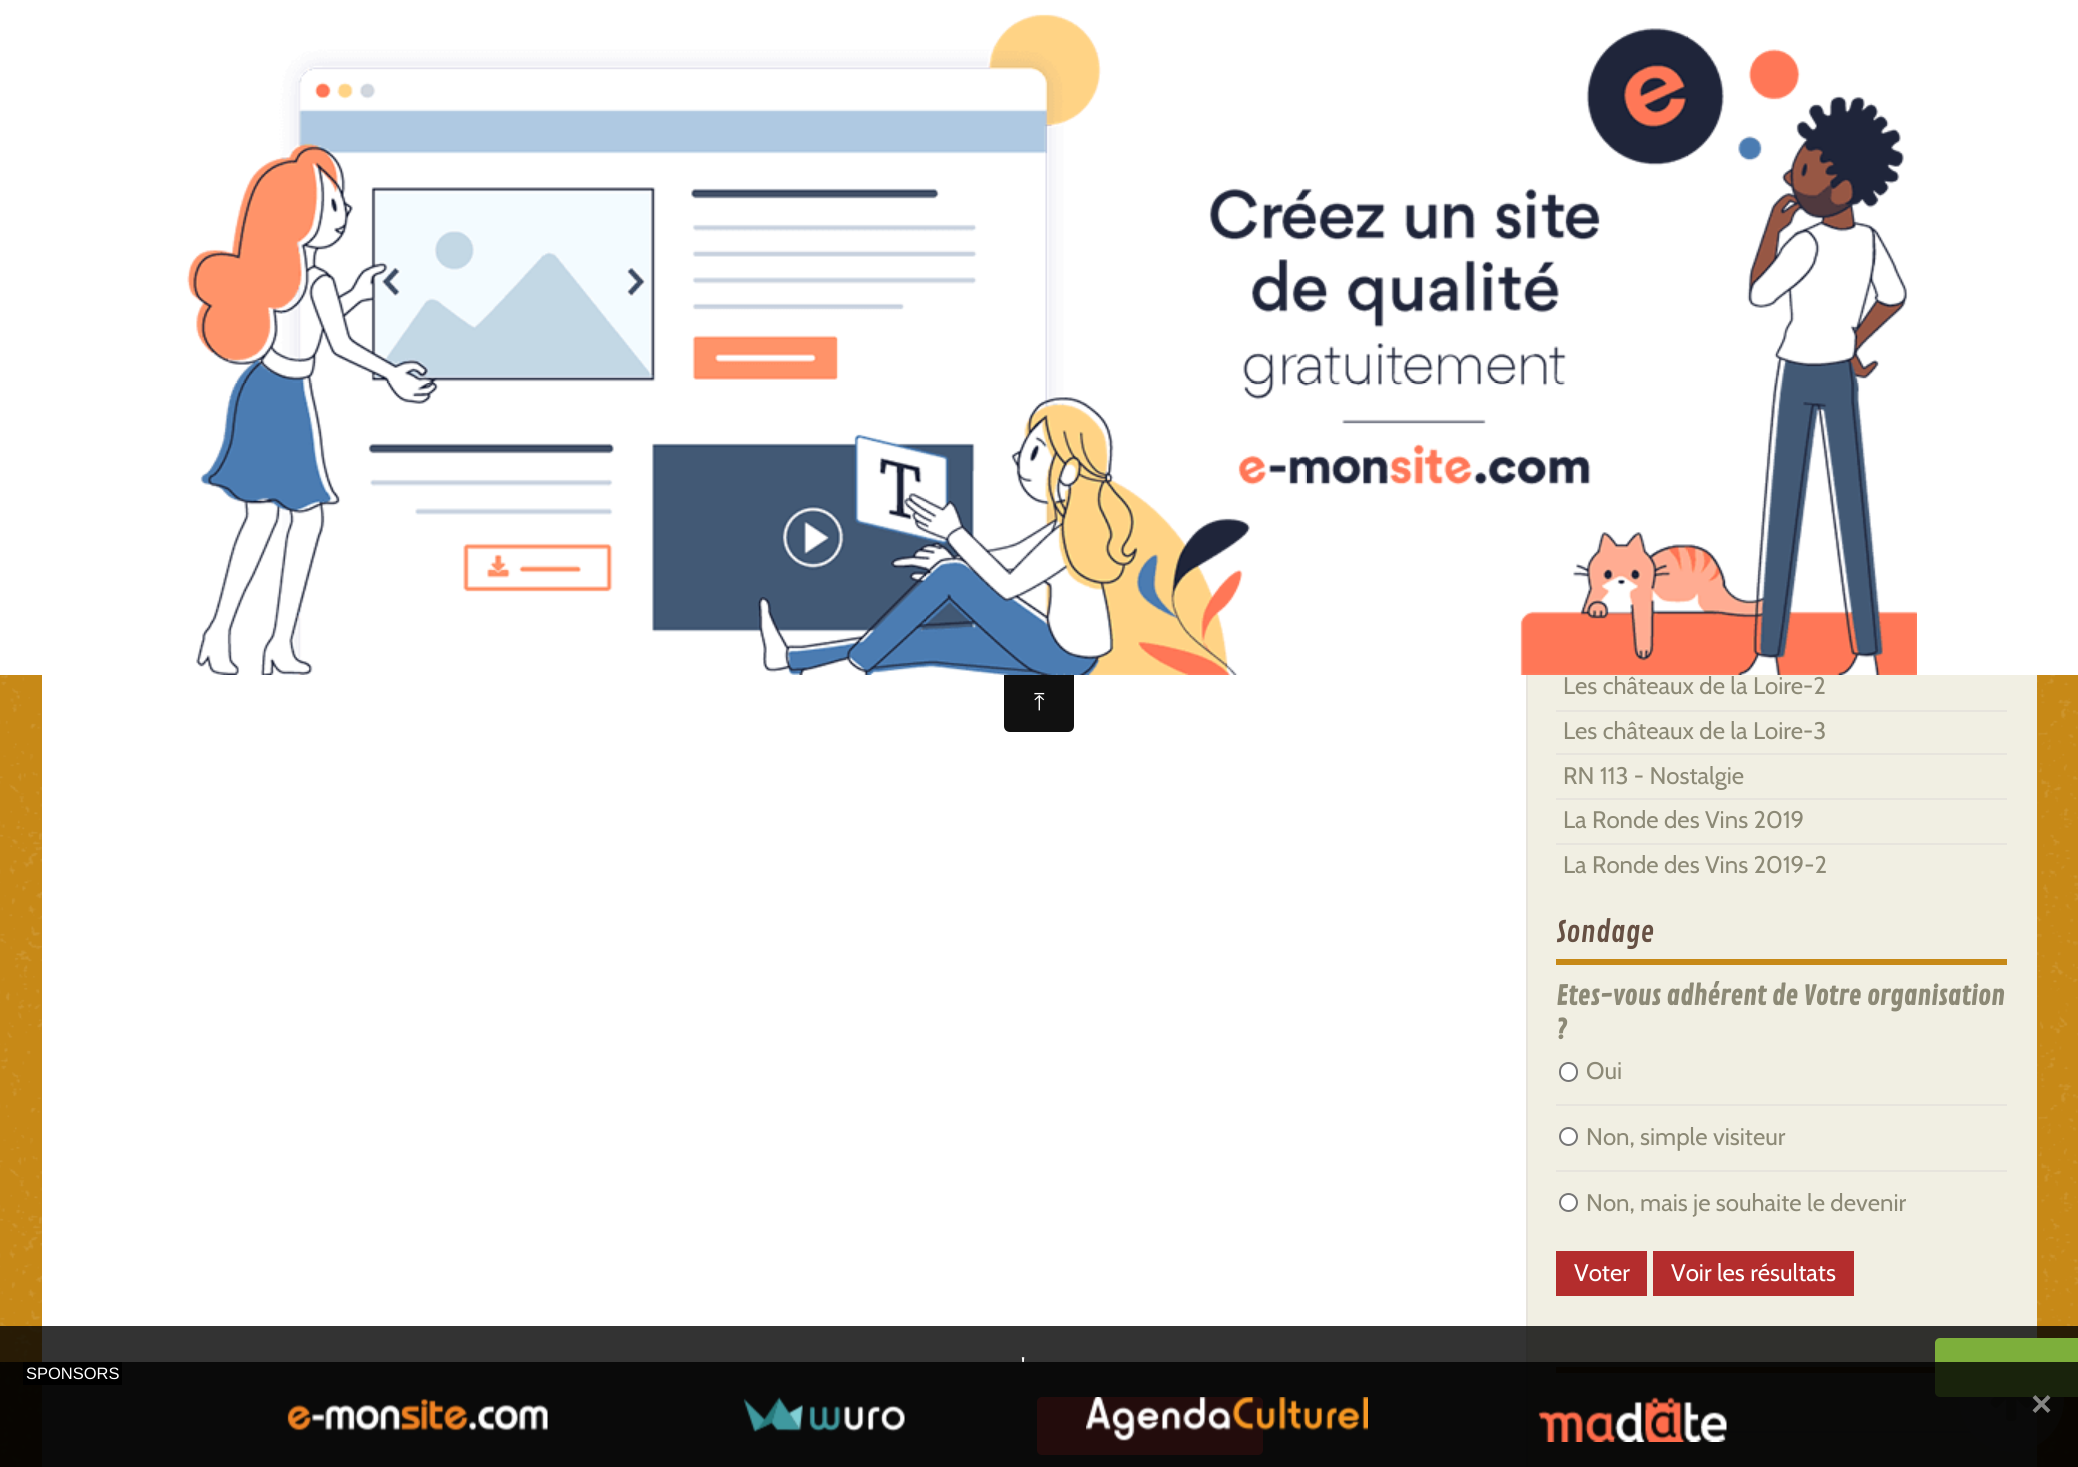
#include <cairo.h>
#include <math.h>
#include <stddef.h>

typedef struct { const char *family; double size; int italic, bold; unsigned color; } style_t;
static cairo_t *ctx;

static void ink(unsigned color) {
    cairo_set_source_rgb(ctx, (color >> 16) / 255.0, (color >> 8 & 255) / 255.0, (color & 255) / 255.0);
}

static void write(double x, double y, const char *s, const style_t *st) {
    cairo_select_font_face(ctx, st->family, st->italic ? CAIRO_FONT_SLANT_ITALIC : CAIRO_FONT_SLANT_NORMAL,
        st->bold ? CAIRO_FONT_WEIGHT_BOLD : CAIRO_FONT_WEIGHT_NORMAL);
    cairo_set_font_size(ctx, st->size);
    ink(st->color);
    cairo_move_to(ctx, x, y);
    cairo_show_text(ctx, s);
}

static void block(double x, double y, double w, double h, unsigned color) {
    ink(color);
    cairo_rectangle(ctx, x, y, w, h);
    cairo_fill(ctx);
}

static void round_path(double x, double y, double w, double h, double r) {
    cairo_new_sub_path(ctx);
    cairo_arc(ctx, x + w - r, y + h - r, r, 0, M_PI / 2);
    cairo_arc(ctx, x + r, y + h - r, r, M_PI / 2, M_PI);
    cairo_arc(ctx, x + r, y + r, r, M_PI, 1.5 * M_PI);
    cairo_arc(ctx, x + w - r, y + r, r, 1.5 * M_PI, 2 * M_PI);
    cairo_close_path(ctx);
}

static void paste(const char *path, double x, double y, double w, double h) {
    cairo_surface_t *image = cairo_image_surface_create_from_png(path);
    cairo_save(ctx);
    cairo_set_source_surface(ctx, image, x, y);
    cairo_rectangle(ctx, x, y, w, h);
    cairo_fill(ctx);
    cairo_restore(ctx);
    cairo_surface_destroy(image);
}

static const style_t s1 = {"FreeSerif", 24, 0, 0, 0xffffff};
static const style_t s2 = {"Cabin", 24, 0, 0, 0x8c8976};
static const style_t s3 = {"Contrail One", 29, 0, 0, 0x665043};
static const style_t s4 = {"Contrail One", 26.4, 0, 1, 0x8c8976};
static const style_t s5 = {"Cabin", 24, 0, 0, 0xffffff};
static const style_t s6 = {"Liberation Sans", 16.5, 0, 0, 0xffffff};
static const style_t s7 = {"Liberation Sans", 36, 0, 1, 0x858583};

int main(void) {
    cairo_surface_t *surface = cairo_image_surface_create(CAIRO_FORMAT_RGB24, 2078, 1467);
    ctx = cairo_create(surface);
    cairo_font_options_t *options = cairo_font_options_create();
    cairo_font_options_set_hint_metrics(options, CAIRO_HINT_METRICS_OFF);
    cairo_font_options_set_hint_style(options, CAIRO_HINT_STYLE_NONE);
    cairo_set_font_options(ctx, options);
    cairo_set_miter_limit(ctx, 4);
    ink(0xc78917);
    cairo_paint(ctx);
    paste("pic1.png", 0, 675, 2078, 792);
    block(0, 0, 2078, 675, 0xffffff);
    paste("pic2.png", 187, 14, 1730, 661);
    block(42, 675, 1484, 792, 0xffffff);
    ink(0x111111);
    cairo_new_path(ctx);
    cairo_move_to(ctx, 1004, 675);
    cairo_line_to(ctx, 1074, 675);
    cairo_line_to(ctx, 1074, 726);
    cairo_curve_to(ctx, 1074, 729.5, 1071.5, 732, 1068, 732);
    cairo_line_to(ctx, 1010, 732);
    cairo_curve_to(ctx, 1006.5, 732, 1004, 729.5, 1004, 726);
    cairo_close_path(ctx);
    cairo_fill(ctx);
    write(1034, 710, "⤒", &s1);
    block(1528, 675, 509, 792, 0xf1efe3);
    block(1526, 675, 2, 792, 0xe7e4dd);
    block(1556, 710, 451, 2, 0xe7e4dd);
    write(1563, 694, "Les châteaux de la Loire-2", &s2);
    block(1556, 753, 451, 2, 0xe7e4dd);
    write(1563, 739, "Les châteaux de la Loire-3", &s2);
    block(1556, 798, 451, 2, 0xe7e4dd);
    write(1563, 784, "RN 113 - Nostalgie", &s2);
    block(1556, 843, 451, 2, 0xe7e4dd);
    write(1563, 828, "La Ronde des Vins 2019", &s2);
    write(1563, 873, "La Ronde des Vins 2019-2", &s2);
    block(1556, 959, 451, 6, 0xc78917);
    write(1556, 942, "Sondage", &s3);
    write(1556, 1005, "Etes-vous adhérent de Votre organisation", &s4);
    write(1556, 1039, "?", &s4);
    block(1556, 1104, 451, 2, 0xe7e4dd);
    ink(0xffffff);
    round_path(1560, 1063, 17, 18, 8.5);
    cairo_fill_preserve(ctx);
    ink(0x767676);
    cairo_stroke(ctx);
    write(1586, 1079, "Oui", &s2);
    block(1556, 1170, 451, 2, 0xe7e4dd);
    ink(0xffffff);
    cairo_new_path(ctx);
    cairo_arc(ctx, 1568.5, 1136.5, 8.5, 0, 2 * M_PI);
    cairo_fill_preserve(ctx);
    ink(0x767676);
    cairo_stroke(ctx);
    write(1586, 1145, "Non, simple visiteur", &s2);
    ink(0xffffff);
    cairo_new_path(ctx);
    cairo_arc(ctx, 1568.5, 1202.5, 8.5, 0, 2 * M_PI);
    cairo_fill_preserve(ctx);
    ink(0x767676);
    cairo_stroke(ctx);
    write(1586, 1211, "Non, mais je souhaite le devenir", &s2);
    block(1556, 1251, 91, 45, 0xb42d2d);
    write(1574, 1281, "Voter", &s5);
    block(1653, 1251, 201, 45, 0xb42d2d);
    write(1671, 1281, "Voir les résultats", &s5);
    block(1556, 1367, 379, 6, 0xc78917);
    block(1556, 1431, 451, 2, 0xe7e4dd);
    cairo_set_source_rgba(ctx, 1, 1, 1, 0.5);
    cairo_new_path(ctx);
    cairo_arc(ctx, 2011.5, 1399.5, 52.5, 0, 2 * M_PI);
    cairo_fill(ctx);
    paste("pic3.png", 1990, 1397, 43, 24);
    cairo_set_source_rgba(ctx, 0, 0, 0, 0.8);
    cairo_rectangle(ctx, 0, 1326, 2078, 141);
    cairo_fill(ctx);
    write(1021, 1374, "'", &s5);
    ink(0x7daf3b);
    round_path(1935, 1338, 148, 59, 5);
    cairo_fill(ctx);
    ink(0xaf3b3b);
    round_path(1037, 1397, 226, 58, 5);
    cairo_fill(ctx);
    cairo_set_source_rgba(ctx, 0, 0, 0, 0.8);
    cairo_rectangle(ctx, 0, 1362, 2078, 105);
    cairo_fill(ctx);
    block(23, 1362, 99, 23, 0x000000);
    write(26, 1379, "SPONSORS", &s6);
    paste("pic4.png", 287, 1398, 261, 33);
    paste("pic5.png", 743, 1397, 162, 35);
    paste("pic6.png", 1086, 1397, 282, 44);
    paste("pic7.png", 1538, 1397, 189, 45);
    write(2031, 1416, "×", &s7);
    cairo_surface_write_to_png(surface, "screenshot.png");
    cairo_font_options_destroy(options);
    cairo_destroy(ctx);
    cairo_surface_destroy(surface);
    return 0;
}
